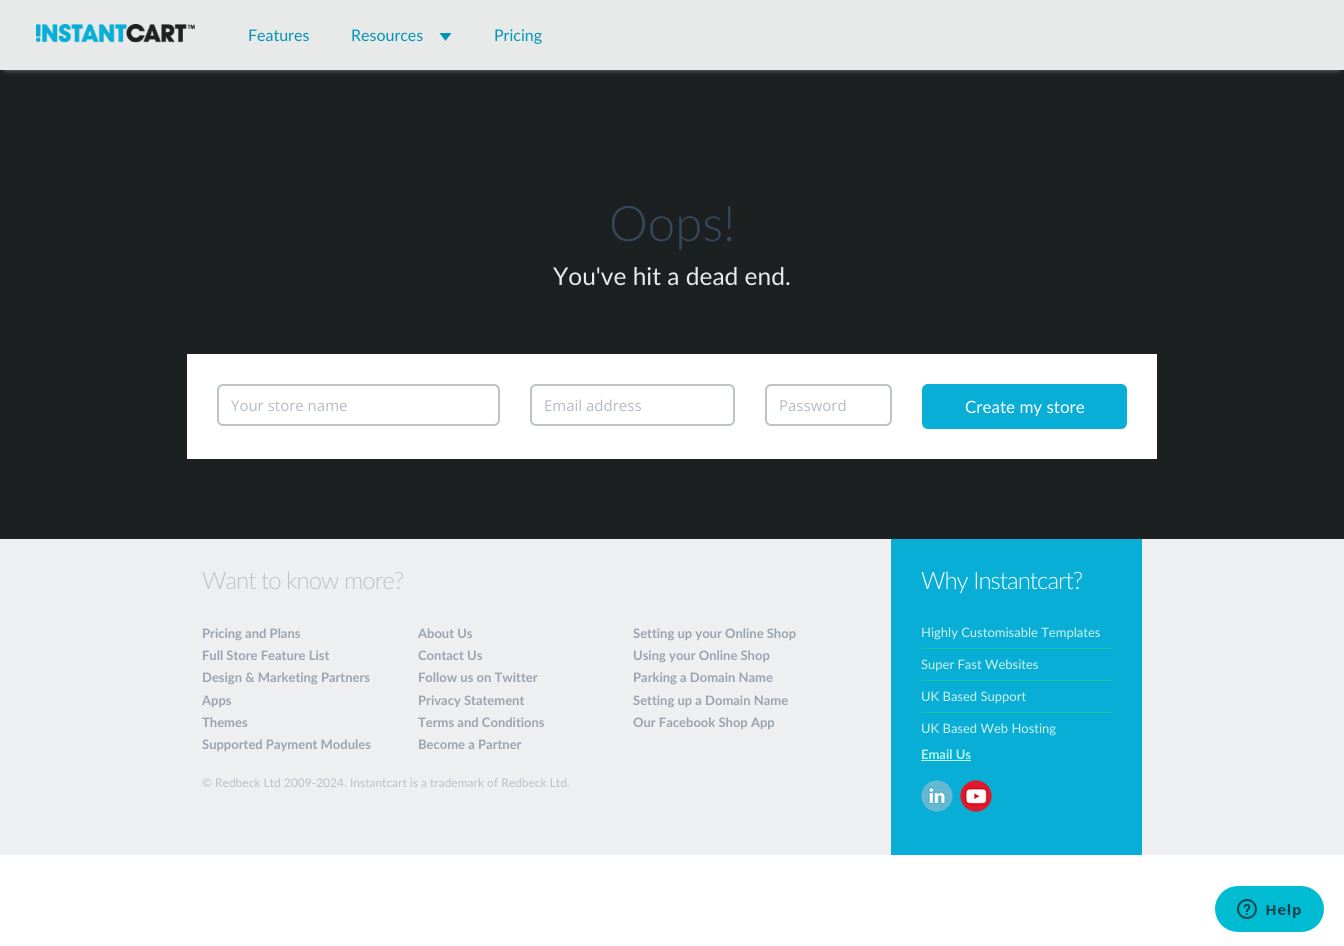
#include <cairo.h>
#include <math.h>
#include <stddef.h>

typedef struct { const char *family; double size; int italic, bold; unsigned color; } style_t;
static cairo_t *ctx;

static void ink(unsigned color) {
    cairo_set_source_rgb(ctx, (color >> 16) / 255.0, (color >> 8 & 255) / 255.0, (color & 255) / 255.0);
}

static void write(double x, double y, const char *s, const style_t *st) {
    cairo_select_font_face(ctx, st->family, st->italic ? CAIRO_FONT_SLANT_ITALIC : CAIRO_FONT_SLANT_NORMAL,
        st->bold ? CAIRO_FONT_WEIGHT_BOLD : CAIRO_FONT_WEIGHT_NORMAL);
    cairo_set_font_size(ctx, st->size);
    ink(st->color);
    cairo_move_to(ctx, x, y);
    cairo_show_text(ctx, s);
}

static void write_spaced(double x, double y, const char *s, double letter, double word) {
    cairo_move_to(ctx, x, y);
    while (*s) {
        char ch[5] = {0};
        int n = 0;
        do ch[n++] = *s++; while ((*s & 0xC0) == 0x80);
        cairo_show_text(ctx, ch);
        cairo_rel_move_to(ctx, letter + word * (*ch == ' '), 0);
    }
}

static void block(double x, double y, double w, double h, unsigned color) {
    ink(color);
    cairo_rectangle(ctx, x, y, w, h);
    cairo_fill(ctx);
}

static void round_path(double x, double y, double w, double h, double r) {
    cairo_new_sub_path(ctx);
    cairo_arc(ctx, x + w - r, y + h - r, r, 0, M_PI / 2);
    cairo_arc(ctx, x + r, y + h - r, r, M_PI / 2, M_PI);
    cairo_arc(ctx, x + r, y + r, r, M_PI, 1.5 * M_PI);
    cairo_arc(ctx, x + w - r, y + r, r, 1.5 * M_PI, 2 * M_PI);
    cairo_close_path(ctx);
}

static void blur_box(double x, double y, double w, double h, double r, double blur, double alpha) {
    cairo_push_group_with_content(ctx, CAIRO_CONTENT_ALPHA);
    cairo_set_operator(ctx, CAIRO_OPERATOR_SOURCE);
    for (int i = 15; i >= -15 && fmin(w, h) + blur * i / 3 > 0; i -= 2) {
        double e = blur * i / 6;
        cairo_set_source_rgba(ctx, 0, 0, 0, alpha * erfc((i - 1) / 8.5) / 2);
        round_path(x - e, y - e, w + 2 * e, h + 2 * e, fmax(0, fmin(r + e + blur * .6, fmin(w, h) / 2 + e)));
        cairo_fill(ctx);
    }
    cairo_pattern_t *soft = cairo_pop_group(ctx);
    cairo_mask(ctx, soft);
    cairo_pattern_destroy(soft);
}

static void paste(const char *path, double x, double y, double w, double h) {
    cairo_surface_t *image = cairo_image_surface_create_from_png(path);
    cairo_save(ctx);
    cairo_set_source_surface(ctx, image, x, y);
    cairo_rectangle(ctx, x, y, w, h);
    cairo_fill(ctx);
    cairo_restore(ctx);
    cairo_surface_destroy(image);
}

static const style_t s1 = {"Lato", 16, 0, 0, 0x0195b8};
static const style_t s2 = {"Lato Light", 49, 0, 0, 0x34495e};
static const style_t s3 = {"Lato", 24.5, 0, 0, 0xe7e9ec};
static const style_t s4 = {"Open Sans", 15, 0, 0, 0xb2bcc5};
static const style_t s5 = {"Lato", 17, 0, 0, 0xffffff};
static const style_t s6 = {"Lato", 13, 0, 1, 0x9aa4af};
static const style_t s7 = {"Lato", 12, 0, 0, 0xbac1c8};
static const style_t s8 = {"Lato", 13, 0, 0, 0xd1f2eb};
static const style_t s9 = {"Lato", 13, 0, 1, 0xb7f5e9};

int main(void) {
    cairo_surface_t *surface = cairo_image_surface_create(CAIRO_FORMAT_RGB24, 1344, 946);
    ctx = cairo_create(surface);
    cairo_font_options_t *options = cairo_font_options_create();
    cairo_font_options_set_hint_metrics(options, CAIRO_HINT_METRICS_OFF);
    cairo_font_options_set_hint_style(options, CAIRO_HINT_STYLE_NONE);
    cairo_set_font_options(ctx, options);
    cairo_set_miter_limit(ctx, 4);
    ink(0xffffff);
    cairo_paint(ctx);
    block(0, 70, 1344, 469, 0x1c2020);
    ink(0xa5a5a5);
    blur_box(6, 11, 1332, 58, 0, 3, 1);
    block(0, 0, 1344, 70, 0xe8e9e9);
    paste("pic1.png", 36, 24, 159, 19);
    write(248, 41, "Features", &s1);
    write(351, 41, "Resources", &s1);
    cairo_new_path(ctx);
    cairo_move_to(ctx, 439.5, 33);
    cairo_line_to(ctx, 451.5, 33);
    cairo_line_to(ctx, 445.5, 41);
    cairo_close_path(ctx);
    cairo_fill(ctx);
    write(494, 41, "Pricing", &s1);
    write(609, 241, "Oops!", &s2);
    write(553, 285, "You've hit a dead end.", &s3);
    block(187, 354, 970, 105, 0xffffff);
    round_path(218, 385, 281, 40, 5);
    ink(0xbdc3c7);
    cairo_stroke(ctx);
    write(231, 411, "Your store name", &s4);
    round_path(531, 385, 203, 40, 5);
    ink(0xbdc3c7);
    cairo_stroke(ctx);
    write(544, 411, "Email address", &s4);
    round_path(766, 385, 125, 40, 5);
    ink(0xbdc3c7);
    cairo_stroke(ctx);
    write(779, 411, "Password", &s4);
    ink(0x08aed6);
    round_path(922, 384, 205, 45, 6);
    cairo_fill(ctx);
    write(965, 413, "Create my store", &s5);
    block(0, 539, 1344, 316, 0xedeff1);
    cairo_select_font_face(ctx, "Lato Light", CAIRO_FONT_SLANT_NORMAL, CAIRO_FONT_WEIGHT_NORMAL);
    cairo_set_font_size(ctx, 24);
    ink(0xbac1c8);
    write_spaced(202, 589, "Want to know more?", -1, 0);
    write(202, 638, "Pricing and Plans", &s6);
    write(202, 660, "Full Store Feature List", &s6);
    write(202, 682, "Design & Marketing Partners", &s6);
    write(202, 705, "Apps", &s6);
    write(202, 727, "Themes", &s6);
    write(202, 749, "Supported Payment Modules", &s6);
    write(418, 638, "About Us", &s6);
    write(418, 660, "Contact Us", &s6);
    write(418, 682, "Follow us on Twitter", &s6);
    write(418, 705, "Privacy Statement", &s6);
    write(418, 727, "Terms and Conditions", &s6);
    write(418, 749, "Become a Partner", &s6);
    write(633, 638, "Setting up your Online Shop", &s6);
    write(633, 660, "Using your Online Shop", &s6);
    write(633, 682, "Parking a Domain Name", &s6);
    write(633, 705, "Setting up a Domain Name", &s6);
    write(633, 727, "Our Facebook Shop App", &s6);
    write(202, 787, "© Redbeck Ltd 2009-2024. Instantcart is a trademark of Redbeck Ltd.", &s7);
    block(891, 539, 251, 316, 0x08aed6);
    cairo_select_font_face(ctx, "Lato Light", CAIRO_FONT_SLANT_NORMAL, CAIRO_FONT_WEIGHT_NORMAL);
    cairo_set_font_size(ctx, 24);
    ink(0xffffff);
    write_spaced(921, 589, "Why Instantcart?", -1, 0);
    write(921, 637, "Highly Customisable Templates", &s8);
    block(921, 648, 191, 1, 0x1bc5a3);
    write(921, 669, "Super Fast Websites", &s8);
    block(921, 680, 191, 1, 0x1bc5a3);
    write(921, 701, "UK Based Support", &s8);
    block(921, 712, 191, 1, 0x1bc5a3);
    write(921, 733, "UK Based Web Hosting", &s8);
    write(921, 759, "Email Us", &s9);
    block(921, 760, 50, 1, 0xb7f5e9);
    paste("pic2.png", 921, 780, 32, 32);
    paste("pic3.png", 960, 780, 32, 32);
    paste("pic4.png", 1215, 886, 109, 46);
    cairo_surface_write_to_png(surface, "screenshot.png");
    cairo_font_options_destroy(options);
    cairo_destroy(ctx);
    cairo_surface_destroy(surface);
    return 0;
}
